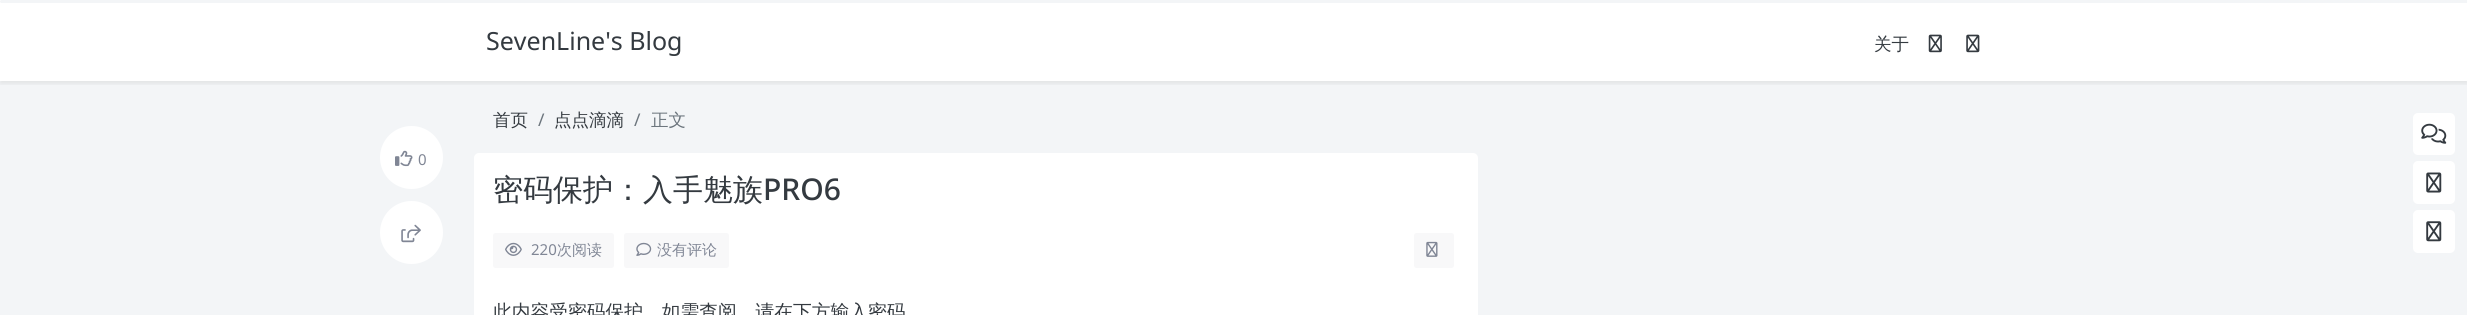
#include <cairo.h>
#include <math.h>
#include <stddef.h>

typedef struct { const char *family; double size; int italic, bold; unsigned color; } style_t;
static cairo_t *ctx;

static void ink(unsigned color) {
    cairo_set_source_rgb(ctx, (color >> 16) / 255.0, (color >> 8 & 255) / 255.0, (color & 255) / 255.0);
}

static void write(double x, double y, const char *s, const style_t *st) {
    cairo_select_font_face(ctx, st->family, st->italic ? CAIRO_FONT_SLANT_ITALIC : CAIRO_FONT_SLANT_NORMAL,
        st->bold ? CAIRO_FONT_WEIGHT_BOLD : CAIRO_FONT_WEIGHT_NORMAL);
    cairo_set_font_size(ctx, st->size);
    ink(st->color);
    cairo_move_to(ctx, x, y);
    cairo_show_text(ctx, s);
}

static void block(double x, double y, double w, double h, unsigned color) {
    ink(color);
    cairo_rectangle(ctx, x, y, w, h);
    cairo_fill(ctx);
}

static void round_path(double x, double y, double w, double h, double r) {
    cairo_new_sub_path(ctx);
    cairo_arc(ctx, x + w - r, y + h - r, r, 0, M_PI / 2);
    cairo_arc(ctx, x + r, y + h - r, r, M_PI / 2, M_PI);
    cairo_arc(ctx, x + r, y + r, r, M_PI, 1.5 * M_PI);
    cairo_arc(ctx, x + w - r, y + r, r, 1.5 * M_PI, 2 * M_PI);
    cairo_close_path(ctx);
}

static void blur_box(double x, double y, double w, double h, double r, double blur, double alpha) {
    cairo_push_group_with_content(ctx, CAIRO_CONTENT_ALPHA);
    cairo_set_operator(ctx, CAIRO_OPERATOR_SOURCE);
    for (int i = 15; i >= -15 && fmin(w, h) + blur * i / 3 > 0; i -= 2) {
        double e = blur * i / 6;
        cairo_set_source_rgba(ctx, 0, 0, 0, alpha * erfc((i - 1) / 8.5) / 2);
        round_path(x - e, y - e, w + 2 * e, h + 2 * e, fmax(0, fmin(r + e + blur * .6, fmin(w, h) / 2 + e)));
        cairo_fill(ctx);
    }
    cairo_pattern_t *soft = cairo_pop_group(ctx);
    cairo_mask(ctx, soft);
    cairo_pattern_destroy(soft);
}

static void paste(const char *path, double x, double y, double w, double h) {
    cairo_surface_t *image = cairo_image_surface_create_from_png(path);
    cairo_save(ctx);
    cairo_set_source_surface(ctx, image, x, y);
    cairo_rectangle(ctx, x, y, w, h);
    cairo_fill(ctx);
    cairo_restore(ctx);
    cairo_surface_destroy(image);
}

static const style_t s1 = {"Noto Sans", 25, 0, 0, 0x343a40};
static const style_t s2 = {"WenQuanYi Zen Hei Medium", 17.5, 0, 0, 0x343a40};
static const style_t s3 = {"Noto Sans", 17.5, 0, 0, 0x6c757d};
static const style_t s4 = {"WenQuanYi Zen Hei Medium", 17.5, 0, 0, 0x6c757d};
static const style_t s5 = {"Noto Sans", 15, 0, 0, 0x808695};
static const style_t s6 = {"WenQuanYi Zen Hei Medium", 30, 0, 0, 0x343a40};
static const style_t s7 = {"Noto Sans Medium", 30, 0, 0, 0x343a40};
static const style_t s8 = {"WenQuanYi Zen Hei Medium", 15, 0, 0, 0x808695};
static const style_t s9 = {"WenQuanYi Zen Hei Medium", 18.75, 0, 0, 0x343a40};

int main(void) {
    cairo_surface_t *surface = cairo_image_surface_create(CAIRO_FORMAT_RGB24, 2467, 315);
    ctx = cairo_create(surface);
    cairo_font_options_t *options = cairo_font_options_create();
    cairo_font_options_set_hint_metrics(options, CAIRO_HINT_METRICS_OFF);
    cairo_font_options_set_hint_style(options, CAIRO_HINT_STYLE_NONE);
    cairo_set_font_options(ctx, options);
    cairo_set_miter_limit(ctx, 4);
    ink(0xf3f5f7);
    cairo_paint(ctx);
    block(0, 0, 2467, 81, 0xffffff);
    cairo_save(ctx);
    cairo_rectangle(ctx, 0, 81, 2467, 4);
    cairo_clip(ctx);
    ink(0x000000);
    blur_box(0, 3, 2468, 81, 0, 2.5, 0.07);
    cairo_restore(ctx);
    ink(0xf3f5f7);
    round_path(0, 0, 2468, 3, 1.5);
    cairo_fill(ctx);
    write(486, 50, "SevenLine's Blog", &s1);
    write(1874, 50, "关于", &s2);
    paste("pic1.png", 1928, 34, 14, 19);
    paste("pic2.png", 1966, 34, 14, 19);
    write(493, 126, "首页", &s2);
    write(538, 126, "/", &s3);
    write(554, 126, "点点滴滴", &s2);
    write(634, 126, "/", &s3);
    write(651, 126, "正文", &s4);
    ink(0xffffff);
    round_path(474, 153, 1004, 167, 5);
    cairo_fill(ctx);
    cairo_arc(ctx, 411.5, 157.5, 31.5, 0, 2 * M_PI);
    cairo_fill(ctx);
    paste("pic3.png", 395, 150, 18, 17);
    write(418, 165, "0", &s5);
    ink(0xffffff);
    cairo_new_path(ctx);
    cairo_arc(ctx, 411.5, 232.5, 31.5, 0, 2 * M_PI);
    cairo_fill(ctx);
    paste("pic4.png", 401, 224, 20, 19);
    write(493, 200, "密码保护：入手魅族", &s6);
    write(763, 200, "PRO6", &s7);
    ink(0xf8f8f9);
    round_path(493, 233, 121, 35, 2.5);
    cairo_fill(ctx);
    paste("pic5.png", 505, 242, 17, 14);
    write(531, 255, "220", &s5);
    write(557, 255, "次阅读", &s8);
    ink(0xf8f8f9);
    round_path(624, 233, 105, 35, 2.5);
    cairo_fill(ctx);
    paste("pic6.png", 636, 242, 16, 14);
    write(657, 255, "没有评论", &s8);
    ink(0xf8f8f9);
    round_path(1414, 233, 40, 35, 2.5);
    cairo_fill(ctx);
    paste("pic7.png", 1426, 241, 12, 16);
    write(493, 318, "此内容受密码保护。如需查阅，请在下方输入密码", &s9);
    ink(0xffffff);
    round_path(2413, 113, 42, 42, 5);
    cairo_fill(ctx);
    paste("pic8.png", 2421, 123, 26, 21);
    round_path(2413, 161, 42, 43, 5);
    cairo_fill(ctx);
    paste("pic9.png", 2426, 172, 16, 21);
    round_path(2413, 210, 42, 43, 5);
    cairo_fill(ctx);
    paste("pic10.png", 2426, 221, 16, 21);
    cairo_surface_write_to_png(surface, "screenshot.png");
    cairo_font_options_destroy(options);
    cairo_destroy(ctx);
    cairo_surface_destroy(surface);
    return 0;
}
